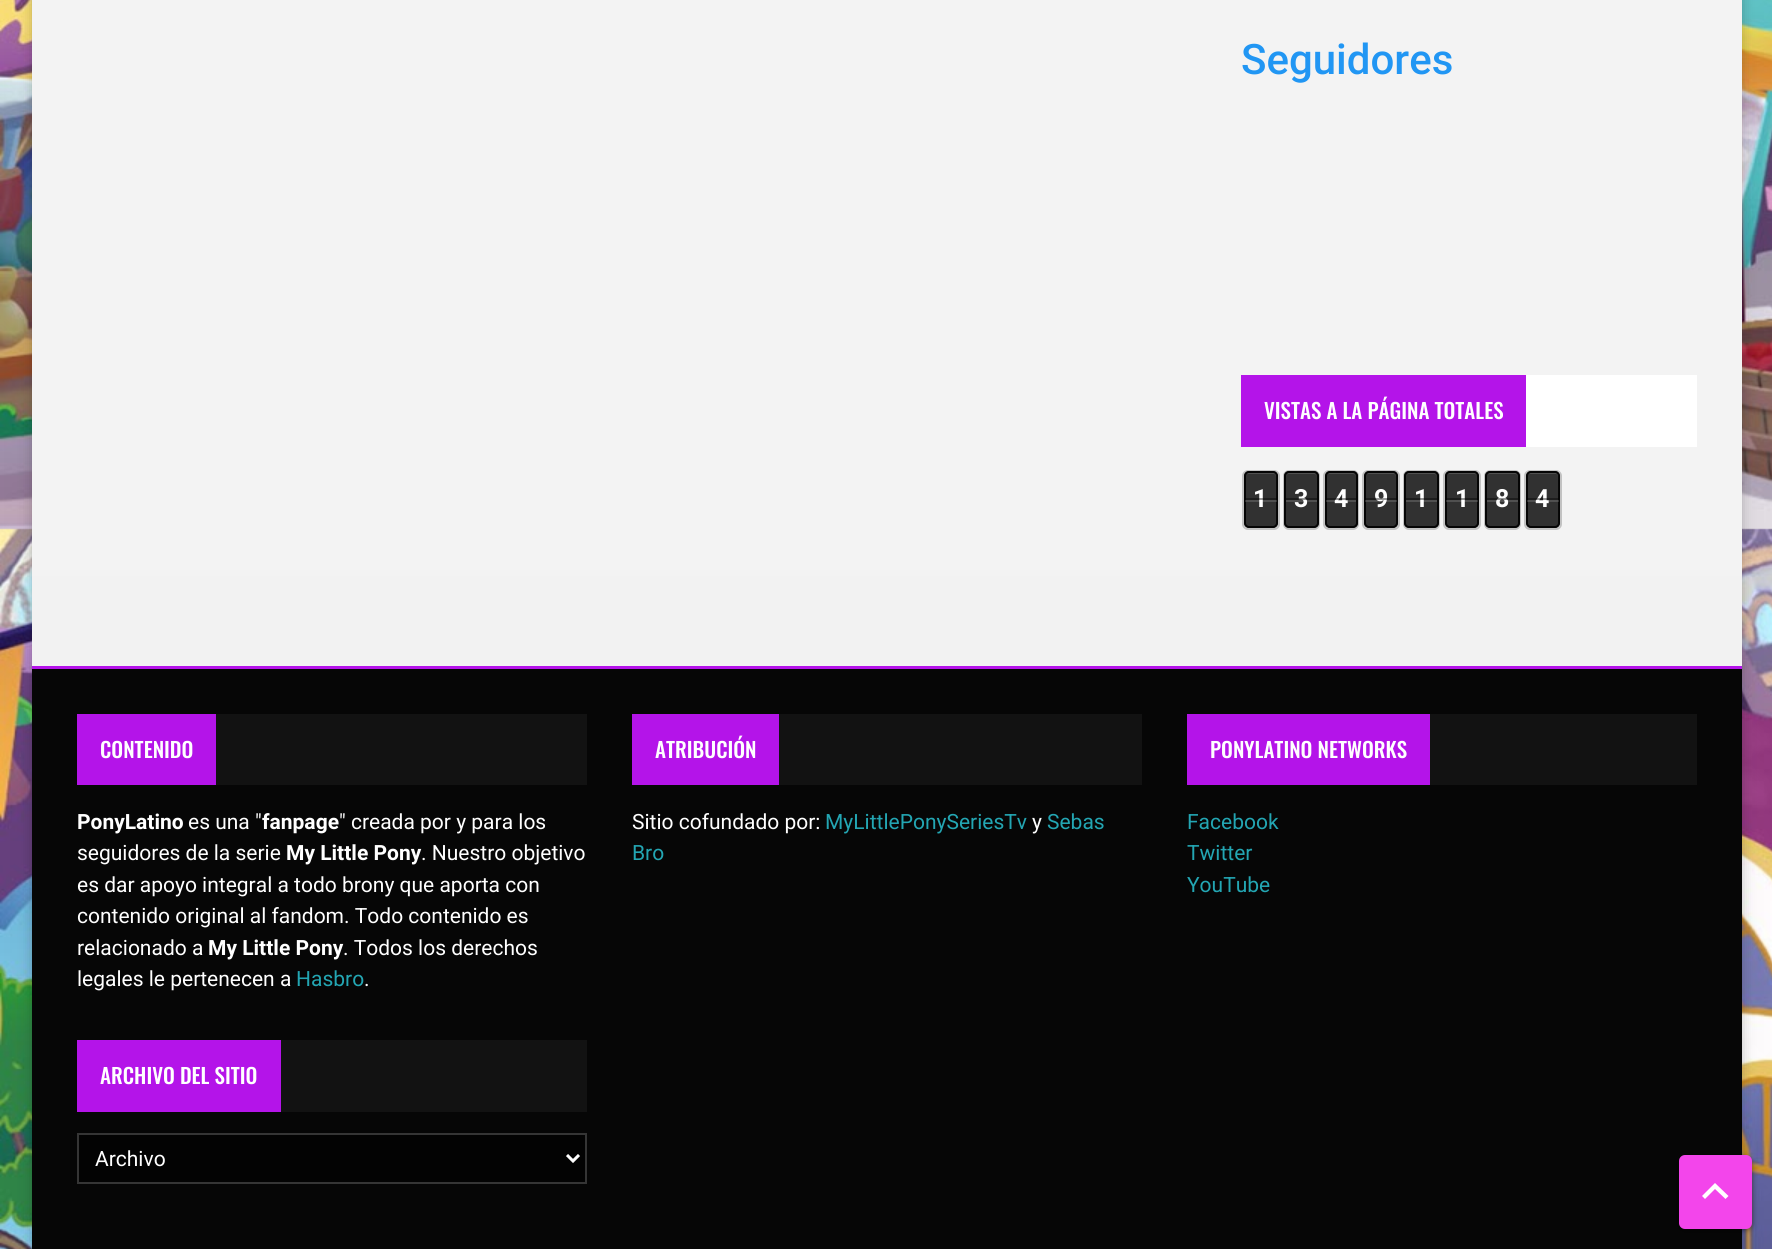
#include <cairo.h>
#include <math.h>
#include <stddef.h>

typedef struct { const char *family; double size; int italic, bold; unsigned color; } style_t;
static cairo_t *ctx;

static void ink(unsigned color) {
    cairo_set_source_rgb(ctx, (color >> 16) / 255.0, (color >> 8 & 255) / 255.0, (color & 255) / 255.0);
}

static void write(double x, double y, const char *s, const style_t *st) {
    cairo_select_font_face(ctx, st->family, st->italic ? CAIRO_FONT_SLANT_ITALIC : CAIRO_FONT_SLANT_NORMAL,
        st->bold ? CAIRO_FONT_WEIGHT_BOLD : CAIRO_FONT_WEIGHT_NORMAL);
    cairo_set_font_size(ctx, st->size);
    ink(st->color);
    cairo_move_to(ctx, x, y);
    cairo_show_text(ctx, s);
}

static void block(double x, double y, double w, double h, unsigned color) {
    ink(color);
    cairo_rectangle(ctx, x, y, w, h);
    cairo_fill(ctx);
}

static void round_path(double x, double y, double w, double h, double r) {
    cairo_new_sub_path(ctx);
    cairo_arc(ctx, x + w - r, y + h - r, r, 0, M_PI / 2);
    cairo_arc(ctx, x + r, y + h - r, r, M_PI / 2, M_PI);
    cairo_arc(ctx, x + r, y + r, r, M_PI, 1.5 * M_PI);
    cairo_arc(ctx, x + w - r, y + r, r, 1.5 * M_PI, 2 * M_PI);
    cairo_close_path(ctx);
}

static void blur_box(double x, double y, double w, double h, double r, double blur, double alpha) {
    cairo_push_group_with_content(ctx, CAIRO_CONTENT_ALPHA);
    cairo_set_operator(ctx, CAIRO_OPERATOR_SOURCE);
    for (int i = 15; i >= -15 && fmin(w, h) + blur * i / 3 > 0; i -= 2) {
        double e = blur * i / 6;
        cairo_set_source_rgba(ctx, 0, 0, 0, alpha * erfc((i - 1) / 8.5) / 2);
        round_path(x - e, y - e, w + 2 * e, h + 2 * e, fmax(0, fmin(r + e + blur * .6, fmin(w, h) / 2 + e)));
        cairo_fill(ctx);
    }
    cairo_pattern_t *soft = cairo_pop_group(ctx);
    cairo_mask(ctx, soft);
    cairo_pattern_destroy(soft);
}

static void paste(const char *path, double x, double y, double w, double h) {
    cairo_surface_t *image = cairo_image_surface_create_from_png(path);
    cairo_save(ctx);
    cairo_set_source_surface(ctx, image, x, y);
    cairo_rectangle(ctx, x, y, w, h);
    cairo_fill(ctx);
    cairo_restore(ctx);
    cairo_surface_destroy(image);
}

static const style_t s1 = {"Roboto Medium", 42, 0, 0, 0x2196f3};
static const style_t s2 = {"Oswald Medium", 21, 0, 0, 0xffffff};
static const style_t s3 = {"Roboto", 25, 0, 1, 0xffffff};
static const style_t s4 = {"Roboto", 21, 0, 1, 0xffffff};
static const style_t s5 = {"Roboto", 21, 0, 0, 0xffffff};
static const style_t s6 = {"Roboto", 21, 0, 0, 0x23a6b3};

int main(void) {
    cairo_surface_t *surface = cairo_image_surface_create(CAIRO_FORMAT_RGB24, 1772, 1249);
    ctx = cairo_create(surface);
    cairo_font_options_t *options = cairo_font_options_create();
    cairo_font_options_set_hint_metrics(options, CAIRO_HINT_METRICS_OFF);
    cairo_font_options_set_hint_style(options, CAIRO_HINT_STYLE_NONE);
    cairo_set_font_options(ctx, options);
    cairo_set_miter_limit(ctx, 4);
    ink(0xffffff);
    cairo_paint(ctx);
    paste("pic1.png", 0, 0, 1772, 1249);
    ink(0x000000);
    blur_box(32, -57, 1710, 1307, 0, 19, 0.05);
    blur_box(32, -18, 1710, 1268, 0, 6, 0.2);
    block(32, 0, 1710, 576, 0xf3f3f3);
    write(1241, 74, "Seguidores", &s1);
    block(1526, 375, 171, 72, 0xffffff);
    block(1241, 375, 285, 72, 0xb414e9);
    write(1264, 419, "VISTAS A LA PÁGINA TOTALES", &s2);
    round_path(1243, 471, 36, 58, 5);
    ink(0xc2c2c2);
    cairo_stroke(ctx);
    ink(0x313131);
    round_path(1244, 471, 34, 57, 5);
    cairo_fill(ctx);
    ink(0x505050);
    cairo_new_path(ctx);
    cairo_move_to(ctx, 1248, 474);
    cairo_line_to(ctx, 1270, 474);
    cairo_curve_to(ctx, 1273, 474, 1276, 473, 1276, 477);
    cairo_line_to(ctx, 1276, 526);
    cairo_curve_to(ctx, 1277, 526, 1277, 525, 1277, 524);
    cairo_line_to(ctx, 1277, 476);
    cairo_curve_to(ctx, 1277, 474, 1276, 473, 1274, 473);
    cairo_line_to(ctx, 1248, 473);
    cairo_curve_to(ctx, 1246, 473, 1245, 474, 1245, 476);
    cairo_line_to(ctx, 1245, 477);
    cairo_curve_to(ctx, 1245, 475, 1246, 474, 1248, 474);
    cairo_close_path(ctx);
    cairo_fill(ctx);
    round_path(1245, 472, 32, 55, 4);
    cairo_set_source_rgba(ctx, 0, 0, 0, 0.9);
    cairo_stroke(ctx);
    write(1253, 507, "1", &s3);
    cairo_set_source_rgba(ctx, 0, 0, 0, 0.4);
    cairo_rectangle(ctx, 1245, 498, 32, 2);
    cairo_fill(ctx);
    cairo_set_source_rgba(ctx, 1, 1, 1, 0.15);
    cairo_rectangle(ctx, 1245, 500, 32, 2);
    cairo_fill(ctx);
    round_path(1284, 471, 35, 58, 5);
    ink(0xc2c2c2);
    cairo_stroke(ctx);
    ink(0x313131);
    round_path(1284, 471, 35, 57, 5);
    cairo_fill(ctx);
    ink(0x505050);
    cairo_new_path(ctx);
    cairo_move_to(ctx, 1288, 474);
    cairo_line_to(ctx, 1314, 474);
    cairo_curve_to(ctx, 1316, 474, 1317, 475, 1317, 477);
    cairo_curve_to(ctx, 1317, 472, 1314, 473, 1310, 473);
    cairo_line_to(ctx, 1293, 473);
    cairo_curve_to(ctx, 1289, 473, 1286, 472, 1286, 477);
    cairo_curve_to(ctx, 1286, 475, 1287, 474, 1288, 474);
    cairo_close_path(ctx);
    cairo_fill(ctx);
    round_path(1285, 472, 33, 55, 4);
    cairo_set_source_rgba(ctx, 0, 0, 0, 0.9);
    cairo_stroke(ctx);
    write(1294, 507, "3", &s3);
    cairo_set_source_rgba(ctx, 0, 0, 0, 0.4);
    cairo_rectangle(ctx, 1286, 498, 31, 2);
    cairo_fill(ctx);
    cairo_set_source_rgba(ctx, 1, 1, 1, 0.15);
    cairo_rectangle(ctx, 1286, 500, 31, 2);
    cairo_fill(ctx);
    round_path(1324, 471, 34, 58, 5);
    ink(0xc2c2c2);
    cairo_stroke(ctx);
    ink(0x313131);
    round_path(1325, 471, 33, 57, 5);
    cairo_fill(ctx);
    ink(0x505050);
    cairo_new_path(ctx);
    cairo_move_to(ctx, 1329, 474);
    cairo_line_to(ctx, 1353, 474);
    cairo_curve_to(ctx, 1355, 474, 1356, 475, 1356, 477);
    cairo_curve_to(ctx, 1356, 472.5, 1353, 473, 1349, 473);
    cairo_line_to(ctx, 1333, 473);
    cairo_curve_to(ctx, 1329, 473, 1326, 472.5, 1326, 477);
    cairo_curve_to(ctx, 1326, 475, 1327, 474, 1329, 474);
    cairo_close_path(ctx);
    cairo_fill(ctx);
    round_path(1326, 472, 31, 55, 4);
    cairo_set_source_rgba(ctx, 0, 0, 0, 0.9);
    cairo_stroke(ctx);
    write(1334, 507, "4", &s3);
    cairo_set_source_rgba(ctx, 0, 0, 0, 0.4);
    cairo_rectangle(ctx, 1326, 498, 30, 2);
    cairo_fill(ctx);
    cairo_set_source_rgba(ctx, 1, 1, 1, 0.15);
    cairo_rectangle(ctx, 1326, 500, 30, 2);
    cairo_fill(ctx);
    round_path(1363, 471, 36, 58, 5);
    ink(0xc2c2c2);
    cairo_stroke(ctx);
    ink(0x313131);
    round_path(1364, 471, 34, 57, 5);
    cairo_fill(ctx);
    ink(0x505050);
    cairo_new_path(ctx);
    cairo_move_to(ctx, 1368, 474);
    cairo_line_to(ctx, 1390, 474);
    cairo_curve_to(ctx, 1393, 474, 1396, 473, 1396, 477);
    cairo_line_to(ctx, 1396, 526);
    cairo_curve_to(ctx, 1397, 526, 1397, 525, 1397, 524);
    cairo_line_to(ctx, 1397, 476);
    cairo_curve_to(ctx, 1397, 474, 1396, 473, 1394, 473);
    cairo_line_to(ctx, 1368, 473);
    cairo_curve_to(ctx, 1366, 473, 1365, 474, 1365, 476);
    cairo_line_to(ctx, 1365, 477);
    cairo_curve_to(ctx, 1365, 475, 1366, 474, 1368, 474);
    cairo_close_path(ctx);
    cairo_fill(ctx);
    round_path(1365, 472, 32, 55, 4);
    cairo_set_source_rgba(ctx, 0, 0, 0, 0.9);
    cairo_stroke(ctx);
    write(1374, 507, "9", &s3);
    cairo_set_source_rgba(ctx, 0, 0, 0, 0.4);
    cairo_rectangle(ctx, 1365, 498, 32, 2);
    cairo_fill(ctx);
    cairo_set_source_rgba(ctx, 1, 1, 1, 0.15);
    cairo_rectangle(ctx, 1365, 500, 32, 2);
    cairo_fill(ctx);
    round_path(1404, 471, 35, 58, 5);
    ink(0xc2c2c2);
    cairo_stroke(ctx);
    ink(0x313131);
    round_path(1404, 471, 35, 57, 5);
    cairo_fill(ctx);
    ink(0x505050);
    cairo_new_path(ctx);
    cairo_move_to(ctx, 1408, 474);
    cairo_line_to(ctx, 1434, 474);
    cairo_curve_to(ctx, 1436, 474, 1437, 475, 1437, 477);
    cairo_curve_to(ctx, 1437, 472, 1434, 473, 1430, 473);
    cairo_line_to(ctx, 1413, 473);
    cairo_curve_to(ctx, 1409, 473, 1406, 472, 1406, 477);
    cairo_curve_to(ctx, 1406, 475, 1407, 474, 1408, 474);
    cairo_close_path(ctx);
    cairo_fill(ctx);
    round_path(1405, 472, 33, 55, 4);
    cairo_set_source_rgba(ctx, 0, 0, 0, 0.9);
    cairo_stroke(ctx);
    write(1414, 507, "1", &s3);
    cairo_set_source_rgba(ctx, 0, 0, 0, 0.4);
    cairo_rectangle(ctx, 1406, 498, 31, 2);
    cairo_fill(ctx);
    cairo_set_source_rgba(ctx, 1, 1, 1, 0.15);
    cairo_rectangle(ctx, 1406, 500, 31, 2);
    cairo_fill(ctx);
    round_path(1444, 471, 36, 58, 5);
    ink(0xc2c2c2);
    cairo_stroke(ctx);
    ink(0x313131);
    round_path(1445, 471, 34, 57, 5);
    cairo_fill(ctx);
    ink(0x505050);
    cairo_new_path(ctx);
    cairo_move_to(ctx, 1449, 474);
    cairo_line_to(ctx, 1474, 474);
    cairo_curve_to(ctx, 1476, 474, 1478, 475, 1478, 477);
    cairo_curve_to(ctx, 1478, 472, 1474.5, 473, 1470.5, 473);
    cairo_line_to(ctx, 1453.5, 473);
    cairo_curve_to(ctx, 1449.5, 473, 1446, 472, 1446, 477);
    cairo_curve_to(ctx, 1446, 475, 1447, 474, 1449, 474);
    cairo_close_path(ctx);
    cairo_fill(ctx);
    round_path(1446, 472, 32, 55, 4);
    cairo_set_source_rgba(ctx, 0, 0, 0, 0.9);
    cairo_stroke(ctx);
    write(1455, 507, "1", &s3);
    cairo_set_source_rgba(ctx, 0, 0, 0, 0.4);
    cairo_rectangle(ctx, 1446, 498, 32, 2);
    cairo_fill(ctx);
    cairo_set_source_rgba(ctx, 1, 1, 1, 0.15);
    cairo_rectangle(ctx, 1446, 500, 32, 2);
    cairo_fill(ctx);
    round_path(1485, 471, 35, 58, 5);
    ink(0xc2c2c2);
    cairo_stroke(ctx);
    ink(0x313131);
    round_path(1485, 471, 35, 57, 5);
    cairo_fill(ctx);
    ink(0x505050);
    cairo_new_path(ctx);
    cairo_move_to(ctx, 1490, 474);
    cairo_line_to(ctx, 1515, 474);
    cairo_curve_to(ctx, 1517, 474, 1518, 475, 1518, 477);
    cairo_line_to(ctx, 1518, 476);
    cairo_curve_to(ctx, 1518, 474.5, 1516.5, 473, 1515, 473);
    cairo_line_to(ctx, 1490, 473);
    cairo_curve_to(ctx, 1489, 473, 1488, 473.5, 1487.5, 474.5);
    cairo_close_path(ctx);
    cairo_fill(ctx);
    round_path(1486, 472, 33, 55, 4);
    cairo_set_source_rgba(ctx, 0, 0, 0, 0.9);
    cairo_stroke(ctx);
    write(1495, 507, "8", &s3);
    cairo_set_source_rgba(ctx, 0, 0, 0, 0.4);
    cairo_rectangle(ctx, 1487, 498, 31, 2);
    cairo_fill(ctx);
    cairo_set_source_rgba(ctx, 1, 1, 1, 0.15);
    cairo_rectangle(ctx, 1487, 500, 31, 2);
    cairo_fill(ctx);
    round_path(1525, 471, 36, 58, 5);
    ink(0xc2c2c2);
    cairo_stroke(ctx);
    ink(0x313131);
    round_path(1526, 471, 34, 57, 5);
    cairo_fill(ctx);
    ink(0x505050);
    cairo_new_path(ctx);
    cairo_move_to(ctx, 1530, 474);
    cairo_line_to(ctx, 1552, 474);
    cairo_curve_to(ctx, 1555, 474, 1558, 473, 1558, 477);
    cairo_line_to(ctx, 1558, 526);
    cairo_curve_to(ctx, 1559, 526, 1559, 525, 1559, 524);
    cairo_line_to(ctx, 1559, 476);
    cairo_curve_to(ctx, 1559, 474, 1558, 473, 1556, 473);
    cairo_line_to(ctx, 1530, 473);
    cairo_curve_to(ctx, 1528, 473, 1527, 474, 1527, 476);
    cairo_line_to(ctx, 1527, 477);
    cairo_curve_to(ctx, 1527, 475, 1528, 474, 1530, 474);
    cairo_close_path(ctx);
    cairo_fill(ctx);
    round_path(1527, 472, 32, 55, 4);
    cairo_set_source_rgba(ctx, 0, 0, 0, 0.9);
    cairo_stroke(ctx);
    write(1535, 507, "4", &s3);
    cairo_set_source_rgba(ctx, 0, 0, 0, 0.4);
    cairo_rectangle(ctx, 1527, 498, 32, 2);
    cairo_fill(ctx);
    cairo_set_source_rgba(ctx, 1, 1, 1, 0.15);
    cairo_rectangle(ctx, 1527, 500, 32, 2);
    cairo_fill(ctx);
    block(32, 669, 1710, 580, 0x060606);
    block(32, 576, 1710, 90, 0xf2f2f2);
    block(32, 666, 1710, 3, 0xb414e9);
    block(216, 714, 371, 71, 0x121212);
    block(77, 714, 139, 71, 0xb414e9);
    write(100, 758, "CONTENIDO", &s2);
    write(77, 829, "PonyLatino", &s4);
    write(188, 829, "es una \"", &s5);
    write(262, 829, "fanpage", &s4);
    write(339, 829, "\" creada por y para los", &s5);
    write(77, 860, "seguidores de la serie", &s5);
    write(286, 860, "My Little Pony", &s4);
    write(421, 860, ". Nuestro objetivo", &s5);
    write(77, 892, "es dar apoyo integral a todo brony que aporta con", &s5);
    write(77, 923, "contenido original al fandom. Todo contenido es", &s5);
    write(77, 955, "relacionado a", &s5);
    write(208, 955, "My Little Pony", &s4);
    write(343, 955, ". Todos los derechos", &s5);
    write(77, 986, "legales le pertenecen a", &s5);
    write(296, 986, "Hasbro", &s6);
    write(364, 986, ".", &s5);
    block(281, 1040, 306, 72, 0x121212);
    block(77, 1040, 204, 72, 0xb414e9);
    write(100, 1084, "ARCHIVO DEL SITIO", &s2);
    ink(0x030303);
    cairo_rectangle(ctx, 78, 1134, 508, 49);
    cairo_fill_preserve(ctx);
    ink(0x353535);
    cairo_stroke(ctx);
    cairo_new_path(ctx);
    cairo_move_to(ctx, 567, 1155);
    cairo_line_to(ctx, 573, 1161);
    cairo_line_to(ctx, 579, 1155);
    ink(0xffffff);
    cairo_set_line_width(ctx, 3);
    cairo_stroke(ctx);
    write(95, 1166, "Archivo", &s5);
    block(779, 714, 363, 71, 0x121212);
    block(632, 714, 147, 71, 0xb414e9);
    write(655, 758, "ATRIBUCIÓN", &s2);
    write(632, 829, "Sitio cofundado por:", &s5);
    write(825, 829, "MyLittlePonySeriesTv", &s6);
    write(1032, 829, "y", &s5);
    write(1047, 829, "Sebas", &s6);
    write(632, 860, "Bro", &s6);
    block(1430, 714, 267, 71, 0x121212);
    block(1187, 714, 243, 71, 0xb414e9);
    write(1210, 758, "PONYLATINO NETWORKS", &s2);
    write(1187, 829, "Facebook", &s6);
    write(1187, 860, "Twitter", &s6);
    write(1187, 892, "YouTube", &s6);
    ink(0x000000);
    blur_box(1679, 1157, 73, 73, 6, 3, 0.5);
    ink(0xf345eb);
    round_path(1679, 1155, 73, 74, 6);
    cairo_fill(ctx);
    ink(0xffffff);
    cairo_new_path(ctx);
    cairo_move_to(ctx, 1705, 1199);
    cairo_line_to(ctx, 1715, 1189);
    cairo_line_to(ctx, 1725.5, 1199);
    cairo_line_to(ctx, 1728.5, 1196);
    cairo_line_to(ctx, 1715, 1183);
    cairo_line_to(ctx, 1702, 1196);
    cairo_close_path(ctx);
    cairo_fill(ctx);
    cairo_surface_write_to_png(surface, "screenshot.png");
    cairo_font_options_destroy(options);
    cairo_destroy(ctx);
    cairo_surface_destroy(surface);
    return 0;
}
